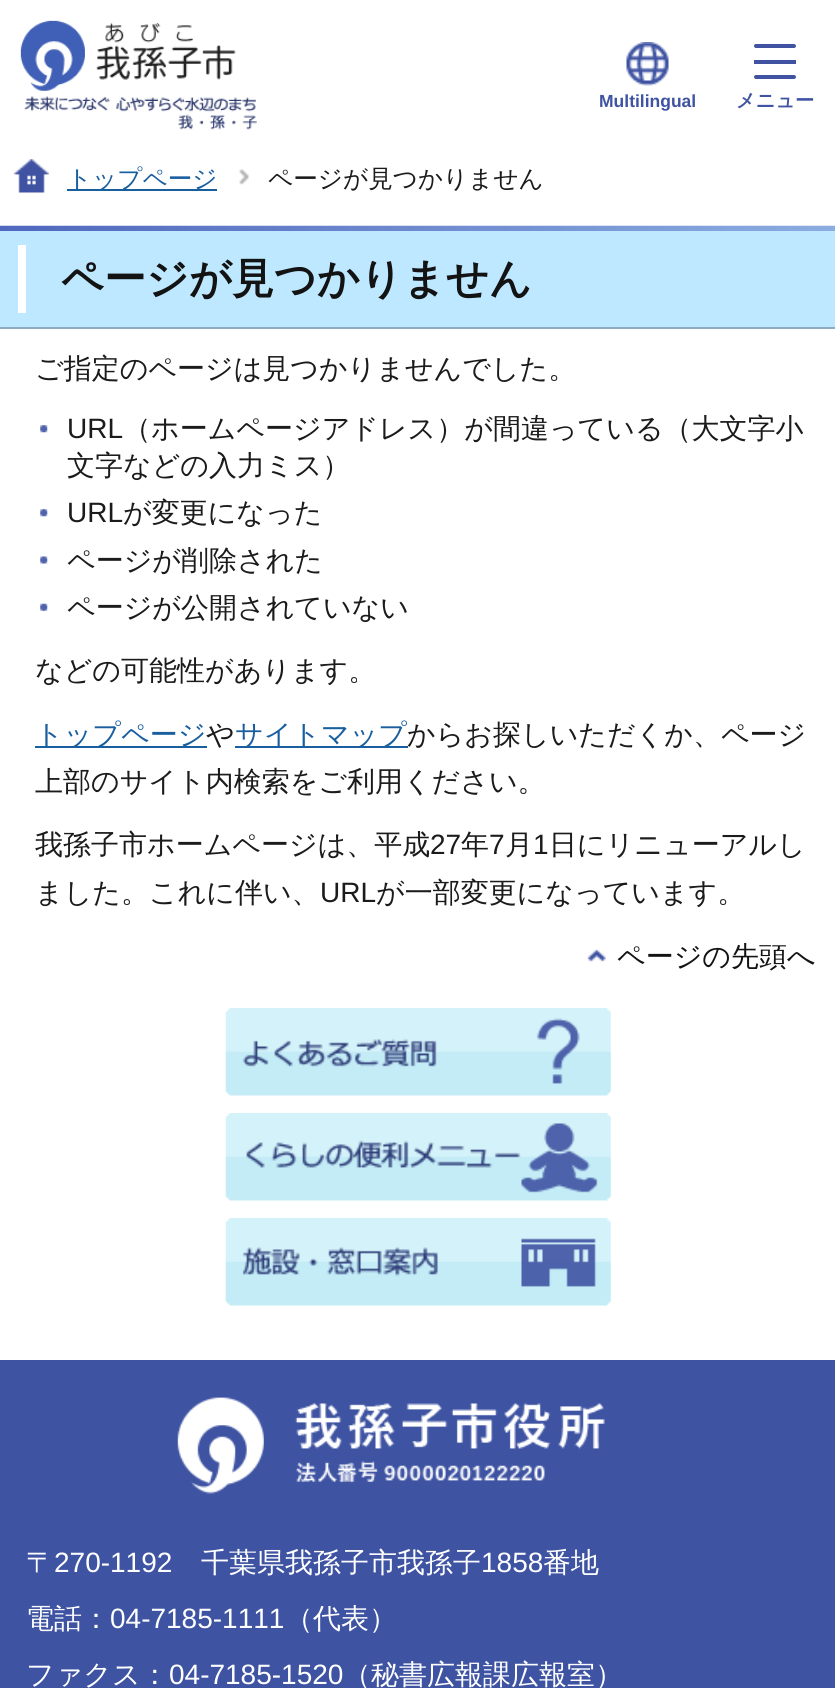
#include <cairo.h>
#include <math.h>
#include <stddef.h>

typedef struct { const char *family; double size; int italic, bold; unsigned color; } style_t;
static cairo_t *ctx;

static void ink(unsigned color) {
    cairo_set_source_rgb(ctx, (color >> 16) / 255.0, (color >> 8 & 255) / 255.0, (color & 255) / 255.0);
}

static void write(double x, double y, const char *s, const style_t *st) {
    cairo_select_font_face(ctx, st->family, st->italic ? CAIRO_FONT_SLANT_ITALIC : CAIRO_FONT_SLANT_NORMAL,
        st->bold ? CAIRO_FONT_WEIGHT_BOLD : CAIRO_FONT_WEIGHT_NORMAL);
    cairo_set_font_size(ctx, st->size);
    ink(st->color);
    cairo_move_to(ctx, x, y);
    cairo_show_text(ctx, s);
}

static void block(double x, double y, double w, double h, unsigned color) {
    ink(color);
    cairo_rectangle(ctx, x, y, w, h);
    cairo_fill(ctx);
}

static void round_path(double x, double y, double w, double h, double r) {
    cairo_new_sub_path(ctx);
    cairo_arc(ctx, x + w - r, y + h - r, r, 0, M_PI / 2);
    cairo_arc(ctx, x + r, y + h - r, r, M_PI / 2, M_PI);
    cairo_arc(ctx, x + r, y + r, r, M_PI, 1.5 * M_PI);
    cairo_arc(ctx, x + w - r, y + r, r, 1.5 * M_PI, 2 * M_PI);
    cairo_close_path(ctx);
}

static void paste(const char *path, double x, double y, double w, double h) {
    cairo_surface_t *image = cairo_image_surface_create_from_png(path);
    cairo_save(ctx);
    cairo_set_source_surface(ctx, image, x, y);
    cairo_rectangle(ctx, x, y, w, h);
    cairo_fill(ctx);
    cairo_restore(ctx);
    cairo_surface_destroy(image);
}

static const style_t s1 = {"Liberation Sans", 17.5, 0, 1, 0x3f53a2};
static const style_t s2 = {"WenQuanYi Zen Hei", 19.25, 0, 1, 0x3f53a2};
static const style_t s3 = {"WenQuanYi Zen Hei Medium", 24.6, 0, 0, 0x195e9f};
static const style_t s4 = {"WenQuanYi Zen Hei Medium", 24.6, 0, 0, 0x1b1b1b};
static const style_t s5 = {"WenQuanYi Zen Hei", 42, 0, 1, 0x131313};
static const style_t s6 = {"WenQuanYi Zen Hei Medium", 28, 0, 0, 0x1b1b1b};
static const style_t s7 = {"Liberation Sans", 28, 0, 0, 0x1b1b1b};
static const style_t s8 = {"WenQuanYi Zen Hei Medium", 28, 0, 0, 0x195e9f};
static const style_t s9 = {"WenQuanYi Zen Hei Medium", 28, 0, 0, 0x131313};
static const style_t s10 = {"WenQuanYi Zen Hei Medium", 28, 0, 0, 0xffffff};
static const style_t s11 = {"Liberation Sans", 28, 0, 0, 0xffffff};

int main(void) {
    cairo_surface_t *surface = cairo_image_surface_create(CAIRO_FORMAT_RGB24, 835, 1688);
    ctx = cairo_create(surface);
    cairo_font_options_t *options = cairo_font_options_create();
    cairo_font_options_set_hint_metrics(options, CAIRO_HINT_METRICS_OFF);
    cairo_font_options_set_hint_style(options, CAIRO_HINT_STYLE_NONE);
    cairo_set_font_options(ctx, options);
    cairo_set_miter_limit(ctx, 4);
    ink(0xffffff);
    cairo_paint(ctx);
    paste("pic1.png", 20, 20, 237, 110);
    paste("pic2.png", 626, 42, 43, 44);
    write(599, 107, "Multilingual", &s1);
    round_path(754, 44, 42, 4, 2);
    cairo_fill(ctx);
    block(754, 60, 42, 4, 0x3f53a2);
    round_path(754, 75, 42, 4, 2);
    cairo_fill(ctx);
    write(736, 107, "メニュー", &s2);
    paste("pic3.png", 14, 159, 35, 34);
    paste("pic4.png", 239, 169, 10, 16);
    block(67, 189, 150, 2, 0x195e9f);
    write(67, 187, "トップページ", &s3);
    write(268, 187, "ページが見つかりません", &s4);
    paste("pic5.png", 0, 225, 835, 6);
    block(0, 231, 835, 96, 0xbde8ff);
    block(0, 327, 835, 2, 0x8fabc2);
    block(18, 245, 8, 68, 0xffffff);
    write(61, 293, "ページが見つかりません", &s5);
    write(35, 378, "ご指定のページは見つかりませんでした。", &s6);
    paste("pic6.png", 40, 425, 8, 8);
    write(67, 438, "URL", &s7);
    write(123, 438, "（ホームページアドレス）が間違っている（大文字小", &s6);
    write(67, 475, "文字などの入力ミス）", &s6);
    paste("pic6.png", 40, 509, 8, 8);
    write(67, 522, "URL", &s7);
    write(123, 522, "が変更になった", &s6);
    paste("pic7.png", 40, 556, 8, 8);
    write(67, 570, "ページが削除された", &s6);
    paste("pic8.png", 40, 603, 8, 8);
    write(67, 617, "ページが公開されていない", &s6);
    write(35, 680, "などの可能性があります。", &s6);
    block(35, 746, 172, 2, 0x195e9f);
    write(35, 744, "トップページ", &s8);
    write(206, 744, "や", &s6);
    block(235, 746, 173, 2, 0x195e9f);
    write(235, 744, "サイトマップ", &s8);
    write(407, 744, "からお探しいただくか、ページ", &s6);
    write(35, 791, "上部のサイト内検索をご利用ください。", &s6);
    write(35, 854, "我孫子市ホームページは、平成", &s6);
    write(430, 854, "27", &s7);
    write(461, 854, "年", &s6);
    write(489, 854, "7", &s7);
    write(505, 854, "月", &s6);
    write(533, 854, "1", &s7);
    write(549, 854, "日にリニューアルし", &s6);
    write(35, 902, "ました。これに伴い、", &s6);
    write(320, 902, "URL", &s7);
    write(376, 902, "が一部変更になっています。", &s6);
    paste("pic9.png", 587, 949, 19, 13);
    write(617, 966, "ページの先頭へ", &s9);
    paste("pic10.png", 225, 1008, 386, 88);
    paste("pic11.png", 225, 1113, 386, 88);
    paste("pic12.png", 225, 1218, 386, 88);
    block(0, 1360, 835, 328, 0x3e53a2);
    paste("pic13.png", 177, 1397, 428, 97);
    write(26, 1572, "〒", &s10);
    write(54, 1572, "270-1192", &s11);
    write(201, 1572, "千葉県我孫子市我孫子", &s10);
    write(481, 1572, "1858", &s11);
    write(543, 1572, "番地", &s10);
    write(26, 1628, "電話：", &s10);
    write(110, 1628, "04-7185-1111", &s11);
    write(285, 1628, "（代表）", &s10);
    write(26, 1684, "ファクス：", &s10);
    write(169, 1684, "04-7185-1520", &s11);
    write(343, 1684, "（秘書広報課広報室）", &s10);
    cairo_surface_write_to_png(surface, "screenshot.png");
    cairo_font_options_destroy(options);
    cairo_destroy(ctx);
    cairo_surface_destroy(surface);
    return 0;
}
